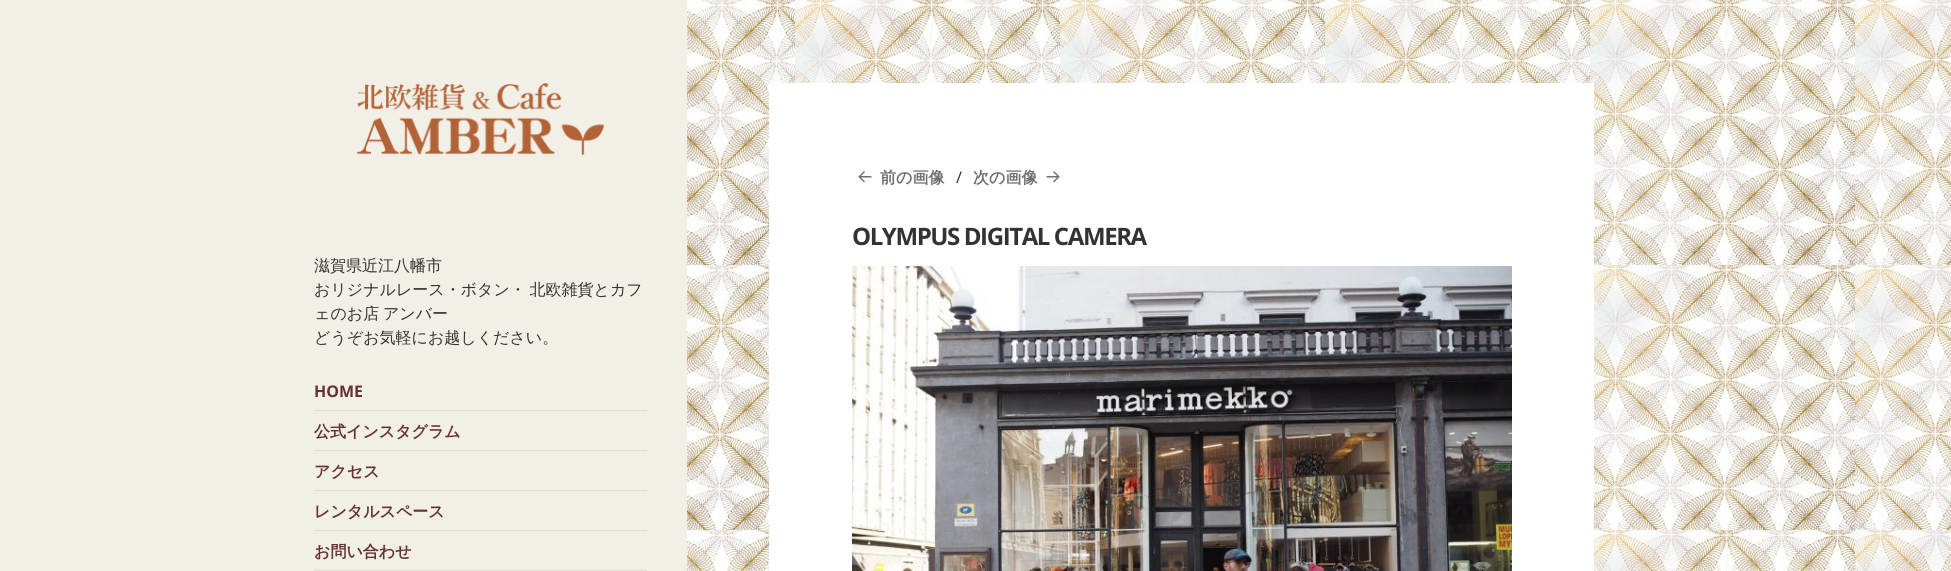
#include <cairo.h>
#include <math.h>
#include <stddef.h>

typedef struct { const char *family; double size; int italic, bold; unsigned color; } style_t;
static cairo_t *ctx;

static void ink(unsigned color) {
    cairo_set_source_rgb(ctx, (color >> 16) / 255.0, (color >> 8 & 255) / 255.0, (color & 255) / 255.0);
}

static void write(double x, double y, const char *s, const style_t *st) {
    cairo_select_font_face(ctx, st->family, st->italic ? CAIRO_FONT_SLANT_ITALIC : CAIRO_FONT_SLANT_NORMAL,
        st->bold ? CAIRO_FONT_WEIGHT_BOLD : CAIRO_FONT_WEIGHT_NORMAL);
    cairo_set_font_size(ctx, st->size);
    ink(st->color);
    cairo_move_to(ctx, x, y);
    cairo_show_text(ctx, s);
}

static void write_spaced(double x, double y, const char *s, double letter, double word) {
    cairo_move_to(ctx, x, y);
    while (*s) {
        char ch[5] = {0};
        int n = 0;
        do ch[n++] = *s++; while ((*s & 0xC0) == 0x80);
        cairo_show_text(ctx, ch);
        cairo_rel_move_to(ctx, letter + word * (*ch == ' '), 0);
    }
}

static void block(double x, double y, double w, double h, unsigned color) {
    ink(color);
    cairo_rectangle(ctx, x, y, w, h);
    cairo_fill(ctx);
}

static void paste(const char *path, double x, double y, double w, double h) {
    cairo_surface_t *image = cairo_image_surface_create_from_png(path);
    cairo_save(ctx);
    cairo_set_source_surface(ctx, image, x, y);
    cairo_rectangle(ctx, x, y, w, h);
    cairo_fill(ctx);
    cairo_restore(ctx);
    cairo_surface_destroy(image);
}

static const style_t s1 = {"WenQuanYi Zen Hei", 16, 0, 1, 0x707070};
static const style_t s2 = {"Noto Sans", 16, 0, 0, 0x333333};
static const style_t s3 = {"WenQuanYi Zen Hei Medium", 16, 0, 0, 0x333333};
static const style_t s4 = {"Open Sans", 16, 0, 1, 0x663333};
static const style_t s5 = {"WenQuanYi Zen Hei", 16, 0, 1, 0x663333};

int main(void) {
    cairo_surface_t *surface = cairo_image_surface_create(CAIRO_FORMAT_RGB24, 1951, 571);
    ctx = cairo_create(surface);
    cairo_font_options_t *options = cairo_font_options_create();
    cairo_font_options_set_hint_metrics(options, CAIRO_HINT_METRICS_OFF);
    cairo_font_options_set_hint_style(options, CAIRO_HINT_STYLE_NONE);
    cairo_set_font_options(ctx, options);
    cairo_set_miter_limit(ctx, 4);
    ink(0xffffff);
    cairo_paint(ctx);
    paste("pic1.png", 687, 0, 1264, 571);
    block(0, 0, 687, 571, 0xf2efe6);
    block(769, 83, 825, 488, 0xffffff);
    paste("pic2.png", 858, 171, 14, 12);
    write(880, 183, "前の画像", &s1);
    write(956, 183, "∕", &s2);
    write(973, 183, "次の画像", &s1);
    paste("pic3.png", 1046, 171, 14, 12);
    cairo_select_font_face(ctx, "Open Sans", CAIRO_FONT_SLANT_NORMAL, CAIRO_FONT_WEIGHT_BOLD);
    cairo_set_font_size(ctx, 24);
    ink(0x333333);
    write_spaced(852, 245, "OLYMPUS DIGITAL CAMERA", -1.4, 0);
    paste("pic4.png", 852, 266, 660, 305);
    paste("pic5.png", 357, 83, 247, 72);
    write(314, 271, "滋賀県近江八幡市", &s3);
    write_spaced(314, 295, "おリジナルレース・ボタン・ 北欧雑貨とカフ", 0, -1);
    write_spaced(314, 319, "ェのお店 アンバー", 0, -1);
    write(314, 343, "どうぞお気軽にお越しください。", &s3);
    write(314, 397, "HOME", &s4);
    block(314, 410, 333, 1, 0xdfdcd4);
    write(314, 437, "公式インスタグラム", &s5);
    block(314, 450, 333, 1, 0xdfdcd4);
    write(314, 477, "アクセス", &s5);
    block(314, 490, 333, 1, 0xdfdcd4);
    write(314, 517, "レンタルスペース", &s5);
    block(314, 530, 333, 1, 0xdfdcd4);
    write(314, 557, "お問い合わせ", &s5);
    block(314, 570, 333, 1, 0xdfdcd4);
    cairo_surface_write_to_png(surface, "screenshot.png");
    cairo_font_options_destroy(options);
    cairo_destroy(ctx);
    cairo_surface_destroy(surface);
    return 0;
}
